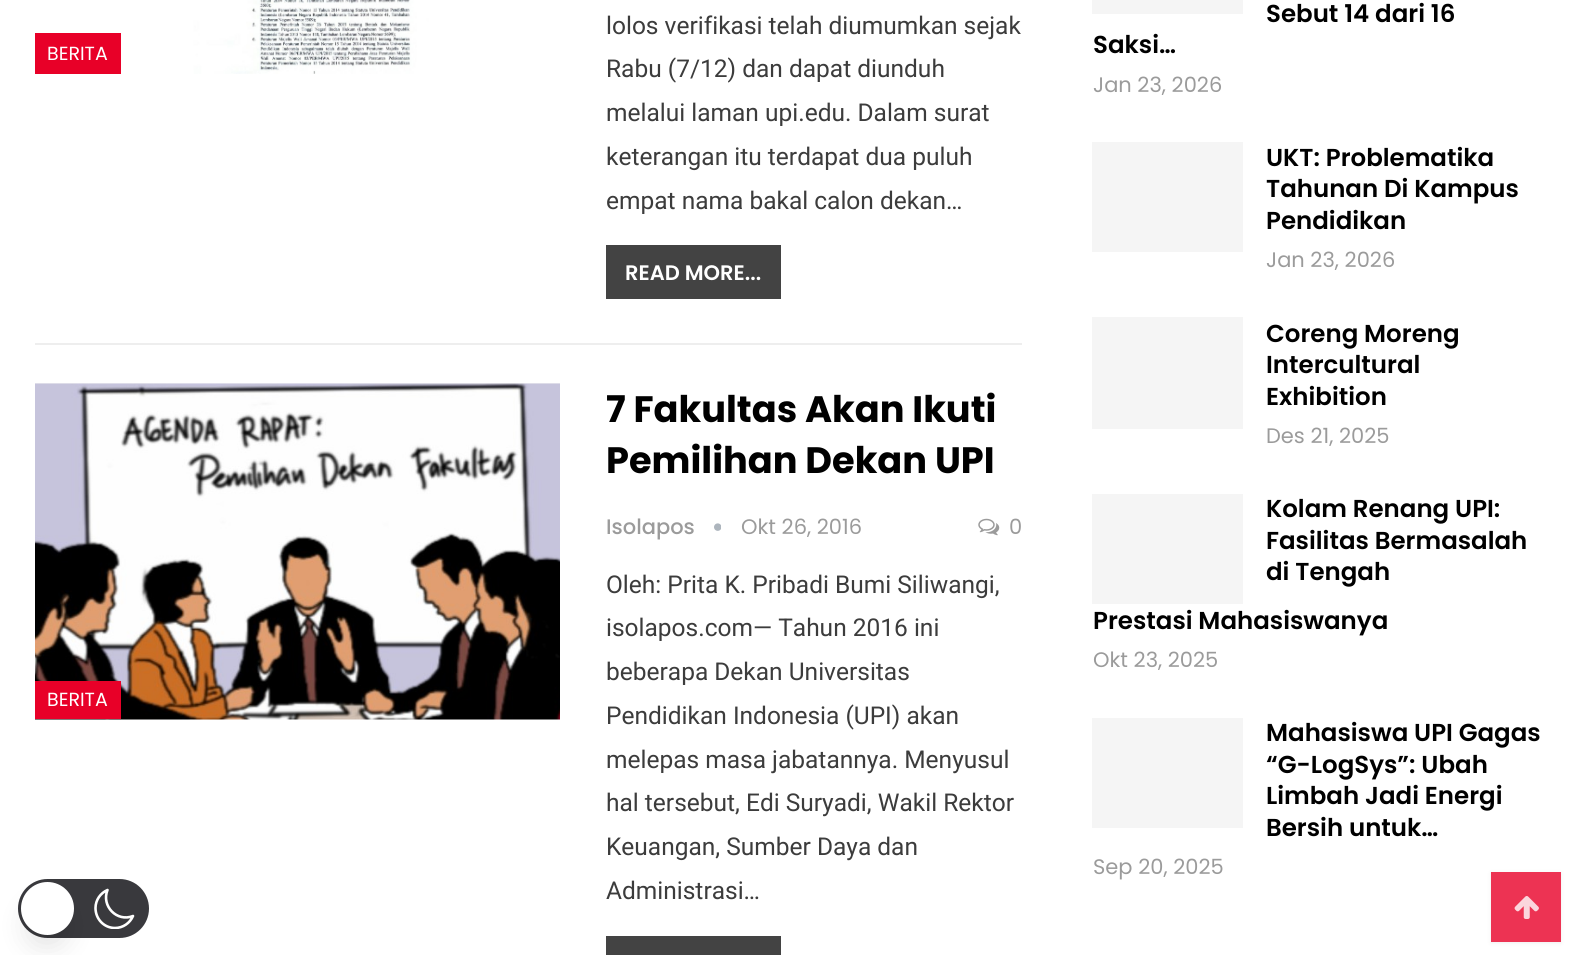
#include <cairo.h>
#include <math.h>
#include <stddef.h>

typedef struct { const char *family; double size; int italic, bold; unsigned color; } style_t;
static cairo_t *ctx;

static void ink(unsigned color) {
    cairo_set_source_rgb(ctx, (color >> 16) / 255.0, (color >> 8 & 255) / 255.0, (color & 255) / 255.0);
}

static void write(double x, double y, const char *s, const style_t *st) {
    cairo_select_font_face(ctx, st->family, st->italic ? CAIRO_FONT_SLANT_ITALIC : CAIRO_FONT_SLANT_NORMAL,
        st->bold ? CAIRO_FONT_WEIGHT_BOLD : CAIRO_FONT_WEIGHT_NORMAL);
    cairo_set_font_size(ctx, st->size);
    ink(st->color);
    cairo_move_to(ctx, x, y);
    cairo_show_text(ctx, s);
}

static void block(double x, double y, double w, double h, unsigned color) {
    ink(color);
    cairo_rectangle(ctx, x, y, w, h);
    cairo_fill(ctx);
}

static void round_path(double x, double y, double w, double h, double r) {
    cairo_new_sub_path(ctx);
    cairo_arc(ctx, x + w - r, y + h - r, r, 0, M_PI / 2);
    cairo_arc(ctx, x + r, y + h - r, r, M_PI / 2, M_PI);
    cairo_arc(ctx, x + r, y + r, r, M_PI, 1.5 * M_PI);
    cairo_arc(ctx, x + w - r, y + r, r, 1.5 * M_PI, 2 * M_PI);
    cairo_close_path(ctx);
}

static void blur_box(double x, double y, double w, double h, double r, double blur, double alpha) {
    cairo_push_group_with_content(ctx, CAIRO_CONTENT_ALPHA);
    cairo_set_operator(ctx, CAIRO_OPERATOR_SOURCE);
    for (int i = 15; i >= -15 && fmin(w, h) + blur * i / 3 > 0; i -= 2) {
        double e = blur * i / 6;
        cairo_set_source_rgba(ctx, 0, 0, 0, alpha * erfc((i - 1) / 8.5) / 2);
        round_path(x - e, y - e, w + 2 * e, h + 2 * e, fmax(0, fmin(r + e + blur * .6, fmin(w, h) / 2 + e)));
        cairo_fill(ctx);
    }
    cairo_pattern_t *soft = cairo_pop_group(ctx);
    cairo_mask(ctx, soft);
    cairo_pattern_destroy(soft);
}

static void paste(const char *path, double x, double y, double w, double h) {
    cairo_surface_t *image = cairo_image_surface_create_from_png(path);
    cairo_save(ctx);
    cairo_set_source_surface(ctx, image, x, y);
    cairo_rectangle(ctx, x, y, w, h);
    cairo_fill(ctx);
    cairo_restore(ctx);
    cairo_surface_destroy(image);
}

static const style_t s1 = {"Poppins", 19, 0, 0, 0xffffff};
static const style_t s2 = {"Roboto", 24.5, 0, 0, 0x3c3c3c};
static const style_t s3 = {"Poppins SemiBold", 21, 0, 0, 0xffffff};
static const style_t s4 = {"Poppins", 36.75, 0, 1, 0x000000};
static const style_t s5 = {"Poppins Medium", 21, 0, 0, 0x9b9b9b};
static const style_t s6 = {"Poppins", 21, 0, 0, 0x9b9b9b};
static const style_t s7 = {"Poppins SemiBold", 24.5, 0, 0, 0x000000};

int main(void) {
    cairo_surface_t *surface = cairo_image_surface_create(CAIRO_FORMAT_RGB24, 1577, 955);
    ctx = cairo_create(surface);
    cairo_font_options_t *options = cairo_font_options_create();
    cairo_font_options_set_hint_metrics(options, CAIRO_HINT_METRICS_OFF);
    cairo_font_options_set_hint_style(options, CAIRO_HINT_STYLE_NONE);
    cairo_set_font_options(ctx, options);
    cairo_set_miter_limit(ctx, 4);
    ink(0xffffff);
    cairo_paint(ctx);
    paste("pic1.png", 35, 0, 525, 74);
    block(35, 33, 86, 41, 0xe80028);
    write(47, 60, "BERITA", &s1);
    write(606, 34, "lolos verifikasi telah diumumkan sejak", &s2);
    write(606, 77, "Rabu (7/12) dan dapat diunduh", &s2);
    write(606, 121, "melalui laman upi.edu. Dalam surat", &s2);
    write(606, 165, "keterangan itu terdapat dua puluh", &s2);
    write(606, 209, "empat nama bakal calon dekan…", &s2);
    block(606, 245, 175, 54, 0x434343);
    write(625, 280, "READ MORE...", &s3);
    block(35, 343, 987, 2, 0xeeeeee);
    write(606, 422, "7 Fakultas Akan Ikuti", &s4);
    write(606, 473, "Pemilihan Dekan UPI", &s4);
    write(606, 534, "Isolapos", &s5);
    paste("pic2.png", 714, 523, 7, 8);
    write(741, 534, "Okt 26, 2016", &s6);
    paste("pic3.png", 978, 518, 22, 18);
    write(1009, 534, "0", &s6);
    block(35, 383, 525, 1, 0xf5f5f5);
    paste("pic4.png", 35, 383, 525, 337);
    block(35, 681, 86, 38, 0xe80028);
    write(47, 706, "BERITA", &s1);
    write(606, 593, "Oleh: Prita K. Pribadi Bumi Siliwangi,", &s2);
    write(606, 636, "isolapos.com— Tahun 2016 ini", &s2);
    write(606, 680, "beberapa Dekan Universitas", &s2);
    write(606, 724, "Pendidikan Indonesia (UPI) akan", &s2);
    write(606, 768, "melepas masa jabatannya. Menyusul", &s2);
    write(606, 811, "hal tersebut, Edi Suryadi, Wakil Rektor", &s2);
    write(606, 855, "Keuangan, Sumber Daya dan", &s2);
    write(606, 899, "Administrasi…", &s2);
    block(606, 936, 175, 19, 0x434343);
    block(1092, 0, 151, 14, 0xf5f5f5);
    write(1266, 22, "Sebut 14 dari 16", &s7);
    write(1093, 53, "Saksi…", &s7);
    write(1093, 92, "Jan 23, 2026", &s6);
    block(1092, 142, 151, 110, 0xf5f5f5);
    write(1266, 166, "UKT: Problematika", &s7);
    write(1266, 197, "Tahunan Di Kampus", &s7);
    write(1266, 229, "Pendidikan", &s7);
    write(1266, 267, "Jan 23, 2026", &s6);
    block(1092, 317, 151, 112, 0xf5f5f5);
    write(1266, 342, "Coreng Moreng", &s7);
    write(1266, 373, "Intercultural", &s7);
    write(1266, 405, "Exhibition", &s7);
    write(1266, 443, "Des 21, 2025", &s6);
    block(1092, 494, 151, 110, 0xf5f5f5);
    write(1266, 517, "Kolam Renang UPI:", &s7);
    write(1266, 549, "Fasilitas Bermasalah", &s7);
    write(1266, 580, "di Tengah", &s7);
    write(1093, 629, "Prestasi Mahasiswanya", &s7);
    write(1093, 667, "Okt 23, 2025", &s6);
    block(1092, 718, 151, 110, 0xf5f5f5);
    write(1266, 741, "Mahasiswa UPI Gagas", &s7);
    write(1266, 773, "“G-LogSys”: Ubah", &s7);
    write(1266, 804, "Limbah Jadi Energi", &s7);
    write(1266, 836, "Bersih untuk…", &s7);
    write(1093, 874, "Sep 20, 2025", &s6);
    ink(0x39393d);
    round_path(18, 879, 131, 59, 29.5);
    cairo_fill(ctx);
    cairo_save(ctx);
    cairo_rectangle(ctx, 93, 887, 44, 42);
    cairo_clip(ctx);
    cairo_new_path(ctx);
    cairo_move_to(ctx, 133, 916);
    cairo_curve_to(ctx, 117, 922.5, 101, 906, 107.5, 890);
    cairo_curve_to(ctx, 100.5, 893, 95.5, 900, 95.5, 908);
    cairo_curve_to(ctx, 95.5, 919, 104, 928, 115, 928);
    cairo_curve_to(ctx, 123, 928, 130, 923, 133, 916);
    cairo_close_path(ctx);
    ink(0xffffff);
    cairo_set_line_width(ctx, 2.6);
    cairo_set_line_cap(ctx, CAIRO_LINE_CAP_ROUND);
    cairo_set_line_join(ctx, CAIRO_LINE_JOIN_ROUND);
    cairo_stroke(ctx);
    cairo_restore(ctx);
    ink(0x000000);
    blur_box(26, 905, 42, 42, 21, 13, 0.1);
    ink(0xffffff);
    cairo_arc(ctx, 47.5, 908.5, 26.5, 0, 2 * M_PI);
    cairo_fill(ctx);
    ink(0x333333);
    blur_box(1491, 873, 70, 70, 0, 2, 0.09);
    block(1491, 872, 70, 70, 0xed3353);
    paste("pic5.png", 1514, 896, 25, 23);
    cairo_surface_write_to_png(surface, "screenshot.png");
    cairo_font_options_destroy(options);
    cairo_destroy(ctx);
    cairo_surface_destroy(surface);
    return 0;
}
